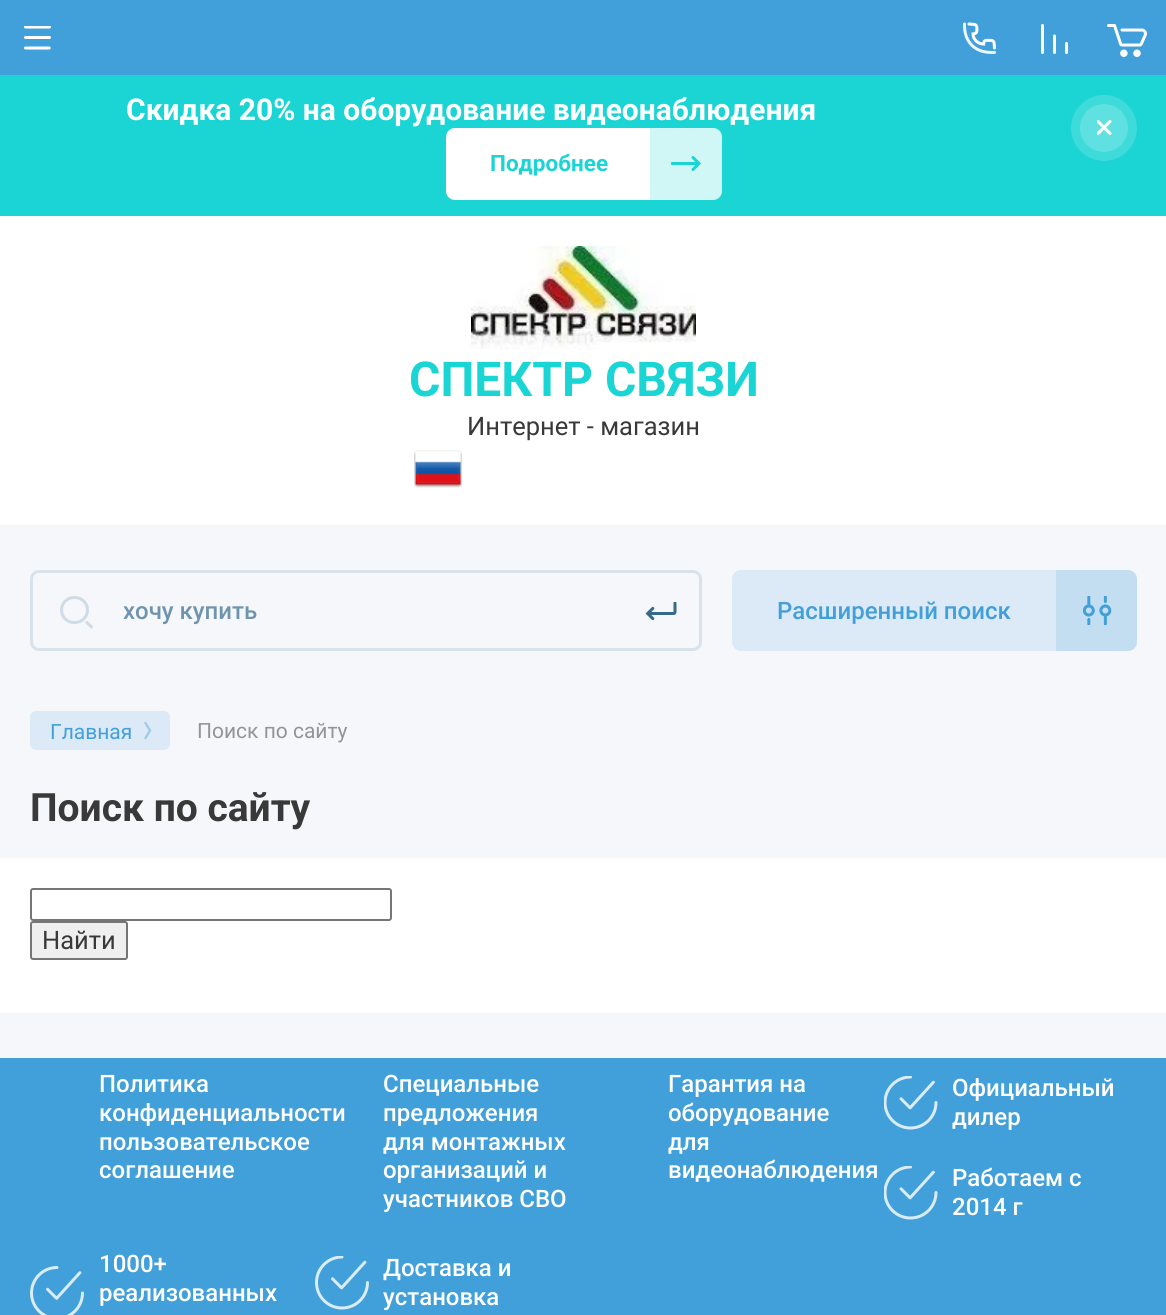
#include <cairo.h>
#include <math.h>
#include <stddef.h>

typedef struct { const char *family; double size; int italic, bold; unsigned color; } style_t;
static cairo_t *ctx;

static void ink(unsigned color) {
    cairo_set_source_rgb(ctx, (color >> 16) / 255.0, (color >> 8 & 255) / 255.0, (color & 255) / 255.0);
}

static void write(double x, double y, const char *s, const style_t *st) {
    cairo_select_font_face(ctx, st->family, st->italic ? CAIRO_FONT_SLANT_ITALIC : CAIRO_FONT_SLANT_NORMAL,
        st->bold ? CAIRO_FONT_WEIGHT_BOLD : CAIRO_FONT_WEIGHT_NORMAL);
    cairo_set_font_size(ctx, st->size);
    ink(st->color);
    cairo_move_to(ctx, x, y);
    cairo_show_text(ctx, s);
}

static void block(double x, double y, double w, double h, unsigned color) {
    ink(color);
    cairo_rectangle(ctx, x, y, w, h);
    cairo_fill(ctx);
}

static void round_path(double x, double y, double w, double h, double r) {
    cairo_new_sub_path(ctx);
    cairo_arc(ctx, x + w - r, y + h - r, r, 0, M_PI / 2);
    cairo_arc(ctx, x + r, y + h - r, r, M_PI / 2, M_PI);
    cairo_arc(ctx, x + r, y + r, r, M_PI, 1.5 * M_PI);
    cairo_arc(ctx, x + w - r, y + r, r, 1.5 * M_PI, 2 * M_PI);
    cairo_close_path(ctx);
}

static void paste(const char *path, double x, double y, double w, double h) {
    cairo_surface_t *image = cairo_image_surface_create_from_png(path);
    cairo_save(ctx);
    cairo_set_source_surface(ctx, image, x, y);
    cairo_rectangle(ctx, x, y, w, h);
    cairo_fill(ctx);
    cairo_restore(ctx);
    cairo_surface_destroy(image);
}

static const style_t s1 = {"Roboto", 30, 0, 1, 0xffffff};
static const style_t s2 = {"Roboto", 22.5, 0, 1, 0x1bd4d4};
static const style_t s3 = {"Roboto", 48, 0, 1, 0x1bd4d4};
static const style_t s4 = {"Roboto", 25.5, 0, 0, 0x393939};
static const style_t s5 = {"Roboto Medium", 24, 0, 0, 0x6f94ad};
static const style_t s6 = {"Roboto Medium", 24, 0, 0, 0x419fd9};
static const style_t s7 = {"Roboto", 21, 0, 0, 0x419fd9};
static const style_t s8 = {"Roboto", 21, 0, 0, 0x949497};
static const style_t s9 = {"Roboto", 39, 0, 1, 0x393939};
static const style_t s10 = {"Roboto Medium", 24, 0, 0, 0xffffff};

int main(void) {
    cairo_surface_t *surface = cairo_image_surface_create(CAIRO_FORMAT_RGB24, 1166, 1315);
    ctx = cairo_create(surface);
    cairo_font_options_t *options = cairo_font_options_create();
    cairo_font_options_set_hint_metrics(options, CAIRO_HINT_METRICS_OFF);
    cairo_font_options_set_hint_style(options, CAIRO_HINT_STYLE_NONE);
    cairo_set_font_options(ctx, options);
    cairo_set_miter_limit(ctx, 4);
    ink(0xf6f7fb);
    cairo_paint(ctx);
    block(0, 0, 1166, 75, 0x419fd9);
    paste("pic1.png", 24, 26, 27, 24);
    paste("pic2.png", 963, 22, 33, 32);
    paste("pic3.png", 1041, 24, 27, 30);
    paste("pic4.png", 1107, 24, 40, 33);
    block(0, 75, 1166, 141, 0x1bd4d4);
    write(126, 120, "Скидка 20% на оборудование видеонаблюдения", &s1);
    cairo_new_path(ctx);
    cairo_arc(ctx, 1104, 128, 28.5, 0, 2 * M_PI);
    ink(0x3fdbdb);
    cairo_set_line_width(ctx, 9);
    cairo_stroke(ctx);
    cairo_set_source_rgba(ctx, 1, 1, 1, 0.3);
    cairo_arc(ctx, 1104, 128, 24, 0, 2 * M_PI);
    cairo_fill(ctx);
    paste("pic5.png", 1097, 120, 15, 15);
    ink(0xffffff);
    round_path(446, 128, 276, 72, 9);
    cairo_fill(ctx);
    write(490, 171, "Подробнее", &s2);
    cairo_set_source_rgba(ctx, 0.106, 0.831, 0.831, 0.2);
    cairo_new_path(ctx);
    cairo_move_to(ctx, 650, 128);
    cairo_line_to(ctx, 713, 128);
    cairo_curve_to(ctx, 718, 128, 722, 132, 722, 137);
    cairo_line_to(ctx, 722, 191);
    cairo_curve_to(ctx, 722, 196, 718, 200, 713, 200);
    cairo_line_to(ctx, 650, 200);
    cairo_close_path(ctx);
    cairo_fill(ctx);
    paste("pic6.png", 671, 156, 30, 15);
    block(0, 216, 1166, 309, 0xffffff);
    paste("pic7.png", 471, 246, 225, 104);
    write(409, 396, "СПЕКТР СВЯЗИ", &s3);
    write(467, 435, "Интернет - магазин", &s4);
    paste("pic8.png", 414, 450, 48, 38);
    round_path(31.5, 571.5, 669, 78, 7.5);
    ink(0xd9e2ea);
    cairo_set_line_width(ctx, 3);
    cairo_stroke(ctx);
    round_path(61.5, 597.5, 26, 25, 12.5);
    ink(0xcfdbe5);
    cairo_stroke(ctx);
    cairo_new_path(ctx);
    cairo_move_to(ctx, 87, 622.5);
    cairo_line_to(ctx, 91.5, 627);
    cairo_set_line_cap(ctx, CAIRO_LINE_CAP_ROUND);
    cairo_stroke(ctx);
    write(123, 619, "хочу купить", &s5);
    paste("pic9.png", 645, 602, 32, 19);
    ink(0xdbeaf6);
    round_path(732, 570, 405, 81, 9);
    cairo_fill(ctx);
    write(777, 619, "Расширенный поиск", &s6);
    cairo_set_source_rgba(ctx, 0.255, 0.624, 0.851, 0.15);
    cairo_new_path(ctx);
    cairo_move_to(ctx, 1056, 570);
    cairo_line_to(ctx, 1128, 570);
    cairo_curve_to(ctx, 1133, 570, 1137, 574, 1137, 579);
    cairo_line_to(ctx, 1137, 642);
    cairo_curve_to(ctx, 1137, 647, 1133, 651, 1128, 651);
    cairo_line_to(ctx, 1056, 651);
    cairo_close_path(ctx);
    cairo_fill(ctx);
    paste("pic10.png", 1083, 596, 29, 30);
    ink(0xdbeaf6);
    round_path(30, 711, 140, 39, 6);
    cairo_fill(ctx);
    write(50, 739, "Главная", &s7);
    paste("pic11.png", 144, 722, 8, 18);
    write(197, 738, "Поиск по сайту", &s8);
    write(30, 821, "Поиск по сайту", &s9);
    block(0, 858, 1166, 155, 0xffffff);
    round_path(31, 889, 360, 31, 2);
    ink(0x767676);
    cairo_set_line_width(ctx, 2);
    cairo_set_line_cap(ctx, CAIRO_LINE_CAP_BUTT);
    cairo_stroke(ctx);
    ink(0xefefef);
    round_path(31, 922, 96, 37, 2);
    cairo_fill_preserve(ctx);
    ink(0x767676);
    cairo_stroke(ctx);
    write(42, 949, "Найти", &s4);
    block(0, 1058, 1166, 257, 0x419fd9);
    write(99, 1092, "Политика", &s10);
    write(99, 1121, "конфиденциальности", &s10);
    write(99, 1150, "пользовательское", &s10);
    write(99, 1178, "соглашение", &s10);
    write(383, 1092, "Специальные", &s10);
    write(383, 1121, "предложения", &s10);
    write(383, 1150, "для монтажных", &s10);
    write(383, 1178, "организаций и", &s10);
    write(383, 1207, "участников СВО", &s10);
    write(668, 1092, "Гарантия на", &s10);
    write(668, 1121, "оборудование", &s10);
    write(668, 1150, "для", &s10);
    write(668, 1178, "видеонаблюдения", &s10);
    paste("pic12.png", 884, 1076, 54, 54);
    write(952, 1096, "Официальный", &s10);
    write(952, 1125, "дилер", &s10);
    paste("pic12.png", 884, 1166, 54, 54);
    write(952, 1186, "Работаем с", &s10);
    write(952, 1215, "2014 г", &s10);
    paste("pic13.png", 30, 1266, 54, 49);
    write(99, 1272, "1000+", &s10);
    write(99, 1301, "реализованных", &s10);
    paste("pic14.png", 315, 1256, 54, 54);
    write(383, 1276, "Доставка и", &s10);
    write(383, 1305, "установка", &s10);
    cairo_surface_write_to_png(surface, "screenshot.png");
    cairo_font_options_destroy(options);
    cairo_destroy(ctx);
    cairo_surface_destroy(surface);
    return 0;
}
